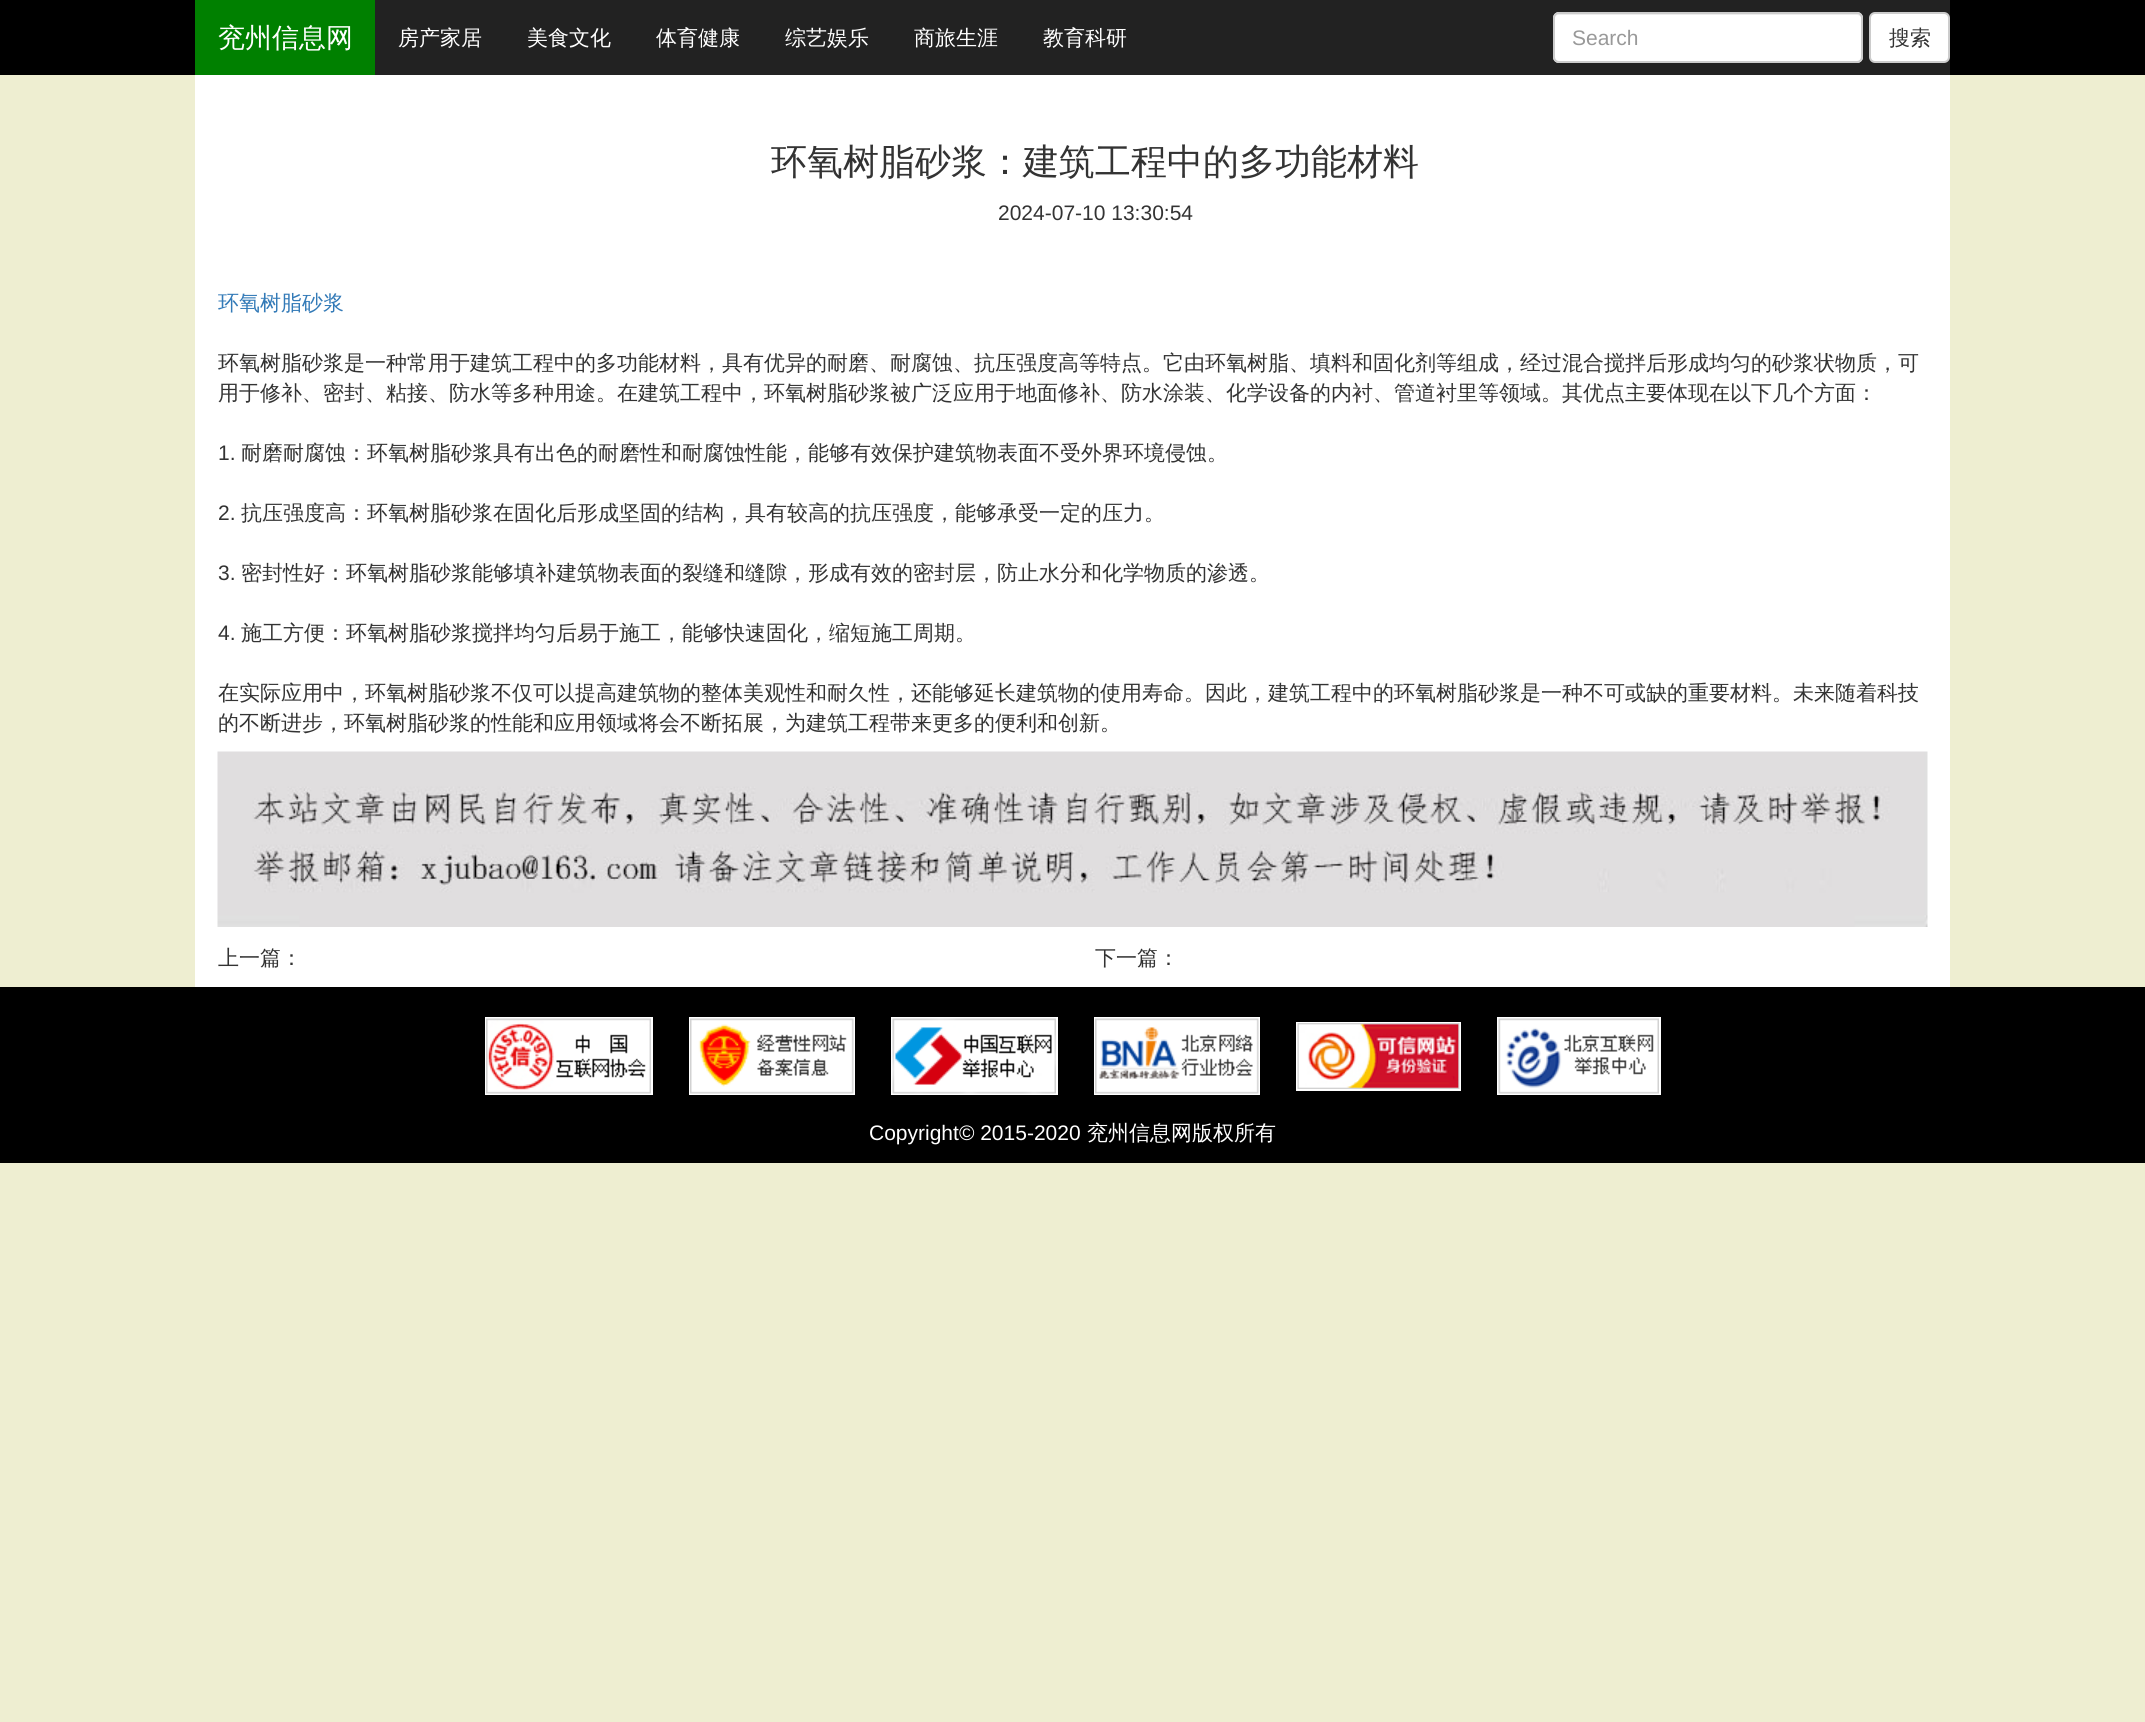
#include <cairo.h>
#include <math.h>
#include <stddef.h>

typedef struct { const char *family; double size; int italic, bold; unsigned color; } style_t;
static cairo_t *ctx;

static void ink(unsigned color) {
    cairo_set_source_rgb(ctx, (color >> 16) / 255.0, (color >> 8 & 255) / 255.0, (color & 255) / 255.0);
}

static void write(double x, double y, const char *s, const style_t *st) {
    cairo_select_font_face(ctx, st->family, st->italic ? CAIRO_FONT_SLANT_ITALIC : CAIRO_FONT_SLANT_NORMAL,
        st->bold ? CAIRO_FONT_WEIGHT_BOLD : CAIRO_FONT_WEIGHT_NORMAL);
    cairo_set_font_size(ctx, st->size);
    ink(st->color);
    cairo_move_to(ctx, x, y);
    cairo_show_text(ctx, s);
}

static void block(double x, double y, double w, double h, unsigned color) {
    ink(color);
    cairo_rectangle(ctx, x, y, w, h);
    cairo_fill(ctx);
}

static void round_path(double x, double y, double w, double h, double r) {
    cairo_new_sub_path(ctx);
    cairo_arc(ctx, x + w - r, y + h - r, r, 0, M_PI / 2);
    cairo_arc(ctx, x + r, y + h - r, r, M_PI / 2, M_PI);
    cairo_arc(ctx, x + r, y + r, r, M_PI, 1.5 * M_PI);
    cairo_arc(ctx, x + w - r, y + r, r, 1.5 * M_PI, 2 * M_PI);
    cairo_close_path(ctx);
}

static void paste(const char *path, double x, double y, double w, double h) {
    cairo_surface_t *image = cairo_image_surface_create_from_png(path);
    cairo_save(ctx);
    cairo_set_source_surface(ctx, image, x, y);
    cairo_rectangle(ctx, x, y, w, h);
    cairo_fill(ctx);
    cairo_restore(ctx);
    cairo_surface_destroy(image);
}

static const style_t s1 = {"WenQuanYi Zen Hei Medium", 27, 0, 0, 0xffffff};
static const style_t s2 = {"WenQuanYi Zen Hei Medium", 21, 0, 0, 0xffffff};
static const style_t s3 = {"Liberation Sans", 21, 0, 0, 0x999999};
static const style_t s4 = {"WenQuanYi Zen Hei Medium", 21, 0, 0, 0x333333};
static const style_t s5 = {"WenQuanYi Zen Hei Medium", 36, 0, 0, 0x333333};
static const style_t s6 = {"Liberation Sans", 21, 0, 0, 0x333333};
static const style_t s7 = {"WenQuanYi Zen Hei Medium", 21, 0, 0, 0x337ab7};
static const style_t s8 = {"Liberation Sans", 21, 0, 0, 0xffffff};

int main(void) {
    cairo_surface_t *surface = cairo_image_surface_create(CAIRO_FORMAT_RGB24, 2145, 1722);
    ctx = cairo_create(surface);
    cairo_font_options_t *options = cairo_font_options_create();
    cairo_font_options_set_hint_metrics(options, CAIRO_HINT_METRICS_OFF);
    cairo_font_options_set_hint_style(options, CAIRO_HINT_STYLE_NONE);
    cairo_set_font_options(ctx, options);
    cairo_set_miter_limit(ctx, 4);
    ink(0xeeeed1);
    cairo_paint(ctx);
    block(0, 0, 2145, 75, 0x000000);
    block(375, 0, 1575, 75, 0x222222);
    block(195, 0, 180, 75, 0x008000);
    write(218, 47, "兖州信息网", &s1);
    write(398, 45, "房产家居", &s2);
    write(527, 45, "美食文化", &s2);
    write(656, 45, "体育健康", &s2);
    write(785, 45, "综艺娱乐", &s2);
    write(914, 45, "商旅生涯", &s2);
    write(1043, 45, "教育科研", &s2);
    round_path(1553, 12, 310, 51, 6);
    cairo_fill(ctx);
    ink(0xececec);
    cairo_new_path(ctx);
    cairo_move_to(ctx, 1558, 15);
    cairo_line_to(ctx, 1857, 15);
    cairo_curve_to(ctx, 1859, 15, 1862, 17, 1862, 20);
    cairo_curve_to(ctx, 1862, 17, 1860, 14, 1857, 14);
    cairo_line_to(ctx, 1559, 14);
    cairo_curve_to(ctx, 1556, 14, 1554, 17, 1554, 20);
    cairo_curve_to(ctx, 1554, 17, 1556, 15, 1558, 15);
    cairo_close_path(ctx);
    cairo_fill(ctx);
    round_path(1554, 13, 308, 49, 5);
    ink(0xcccccc);
    cairo_stroke(ctx);
    write(1572, 45, "Search", &s3);
    ink(0xffffff);
    round_path(1870, 13, 79, 49, 5);
    cairo_fill_preserve(ctx);
    ink(0xcccccc);
    cairo_stroke(ctx);
    write(1889, 45, "搜索", &s4);
    block(195, 75, 1755, 912, 0xffffff);
    write(771, 174, "环氧树脂砂浆：建筑工程中的多功能材料", &s5);
    write(998, 220, "2024-07-10 13:30:54", &s6);
    write(218, 310, "环氧树脂砂浆", &s7);
    write(218, 370, "环氧树脂砂浆是一种常用于建筑工程中的多功能材料，具有优异的耐磨、耐腐蚀、抗压强度高等特点。它由环氧树脂、填料和固化剂等组成，经过混合搅拌后形成均匀的砂浆状物质，可", &s4);
    write(218, 400, "用于修补、密封、粘接、防水等多种用途。在建筑工程中，环氧树脂砂浆被广泛应用于地面修补、防水涂装、化学设备的内衬、管道衬里等领域。其优点主要体现在以下几个方面：", &s4);
    write(218, 460, "1.", &s6);
    write(241, 460, "耐磨耐腐蚀：环氧树脂砂浆具有出色的耐磨性和耐腐蚀性能，能够有效保护建筑物表面不受外界环境侵蚀。", &s4);
    write(218, 520, "2.", &s6);
    write(241, 520, "抗压强度高：环氧树脂砂浆在固化后形成坚固的结构，具有较高的抗压强度，能够承受一定的压力。", &s4);
    write(218, 580, "3.", &s6);
    write(241, 580, "密封性好：环氧树脂砂浆能够填补建筑物表面的裂缝和缝隙，形成有效的密封层，防止水分和化学物质的渗透。", &s4);
    write(218, 640, "4.", &s6);
    write(241, 640, "施工方便：环氧树脂砂浆搅拌均匀后易于施工，能够快速固化，缩短施工周期。", &s4);
    write(218, 700, "在实际应用中，环氧树脂砂浆不仅可以提高建筑物的整体美观性和耐久性，还能够延长建筑物的使用寿命。因此，建筑工程中的环氧树脂砂浆是一种不可或缺的重要材料。未来随着科技", &s4);
    write(218, 730, "的不断进步，环氧树脂砂浆的性能和应用领域将会不断拓展，为建筑工程带来更多的便利和创新。", &s4);
    paste("pic1.png", 217, 751, 1711, 176);
    write(218, 965, "上一篇：", &s4);
    write(1095, 965, "下一篇：", &s4);
    block(0, 987, 2145, 176, 0x000000);
    cairo_rectangle(ctx, 486, 1018, 166, 76);
    ink(0xffffff);
    cairo_stroke(ctx);
    cairo_rectangle(ctx, 690, 1018, 164, 76);
    cairo_stroke(ctx);
    cairo_rectangle(ctx, 892, 1018, 165, 76);
    cairo_stroke(ctx);
    cairo_rectangle(ctx, 1095, 1018, 164, 76);
    cairo_stroke(ctx);
    cairo_rectangle(ctx, 1498, 1018, 162, 76);
    cairo_stroke(ctx);
    paste("pic2.png", 486, 1018, 165, 76);
    paste("pic3.png", 690, 1018, 164, 76);
    paste("pic4.png", 892, 1018, 164, 76);
    paste("pic5.png", 1095, 1018, 164, 76);
    cairo_rectangle(ctx, 1297, 1023, 163, 67);
    cairo_stroke(ctx);
    paste("pic6.png", 1498, 1018, 161, 76);
    paste("pic7.png", 1297, 1023, 163, 66);
    write(869, 1140, "Copyright© 2015-2020", &s8);
    write(1087, 1140, "兖州信息网版权所有", &s2);
    cairo_surface_write_to_png(surface, "screenshot.png");
    cairo_font_options_destroy(options);
    cairo_destroy(ctx);
    cairo_surface_destroy(surface);
    return 0;
}
